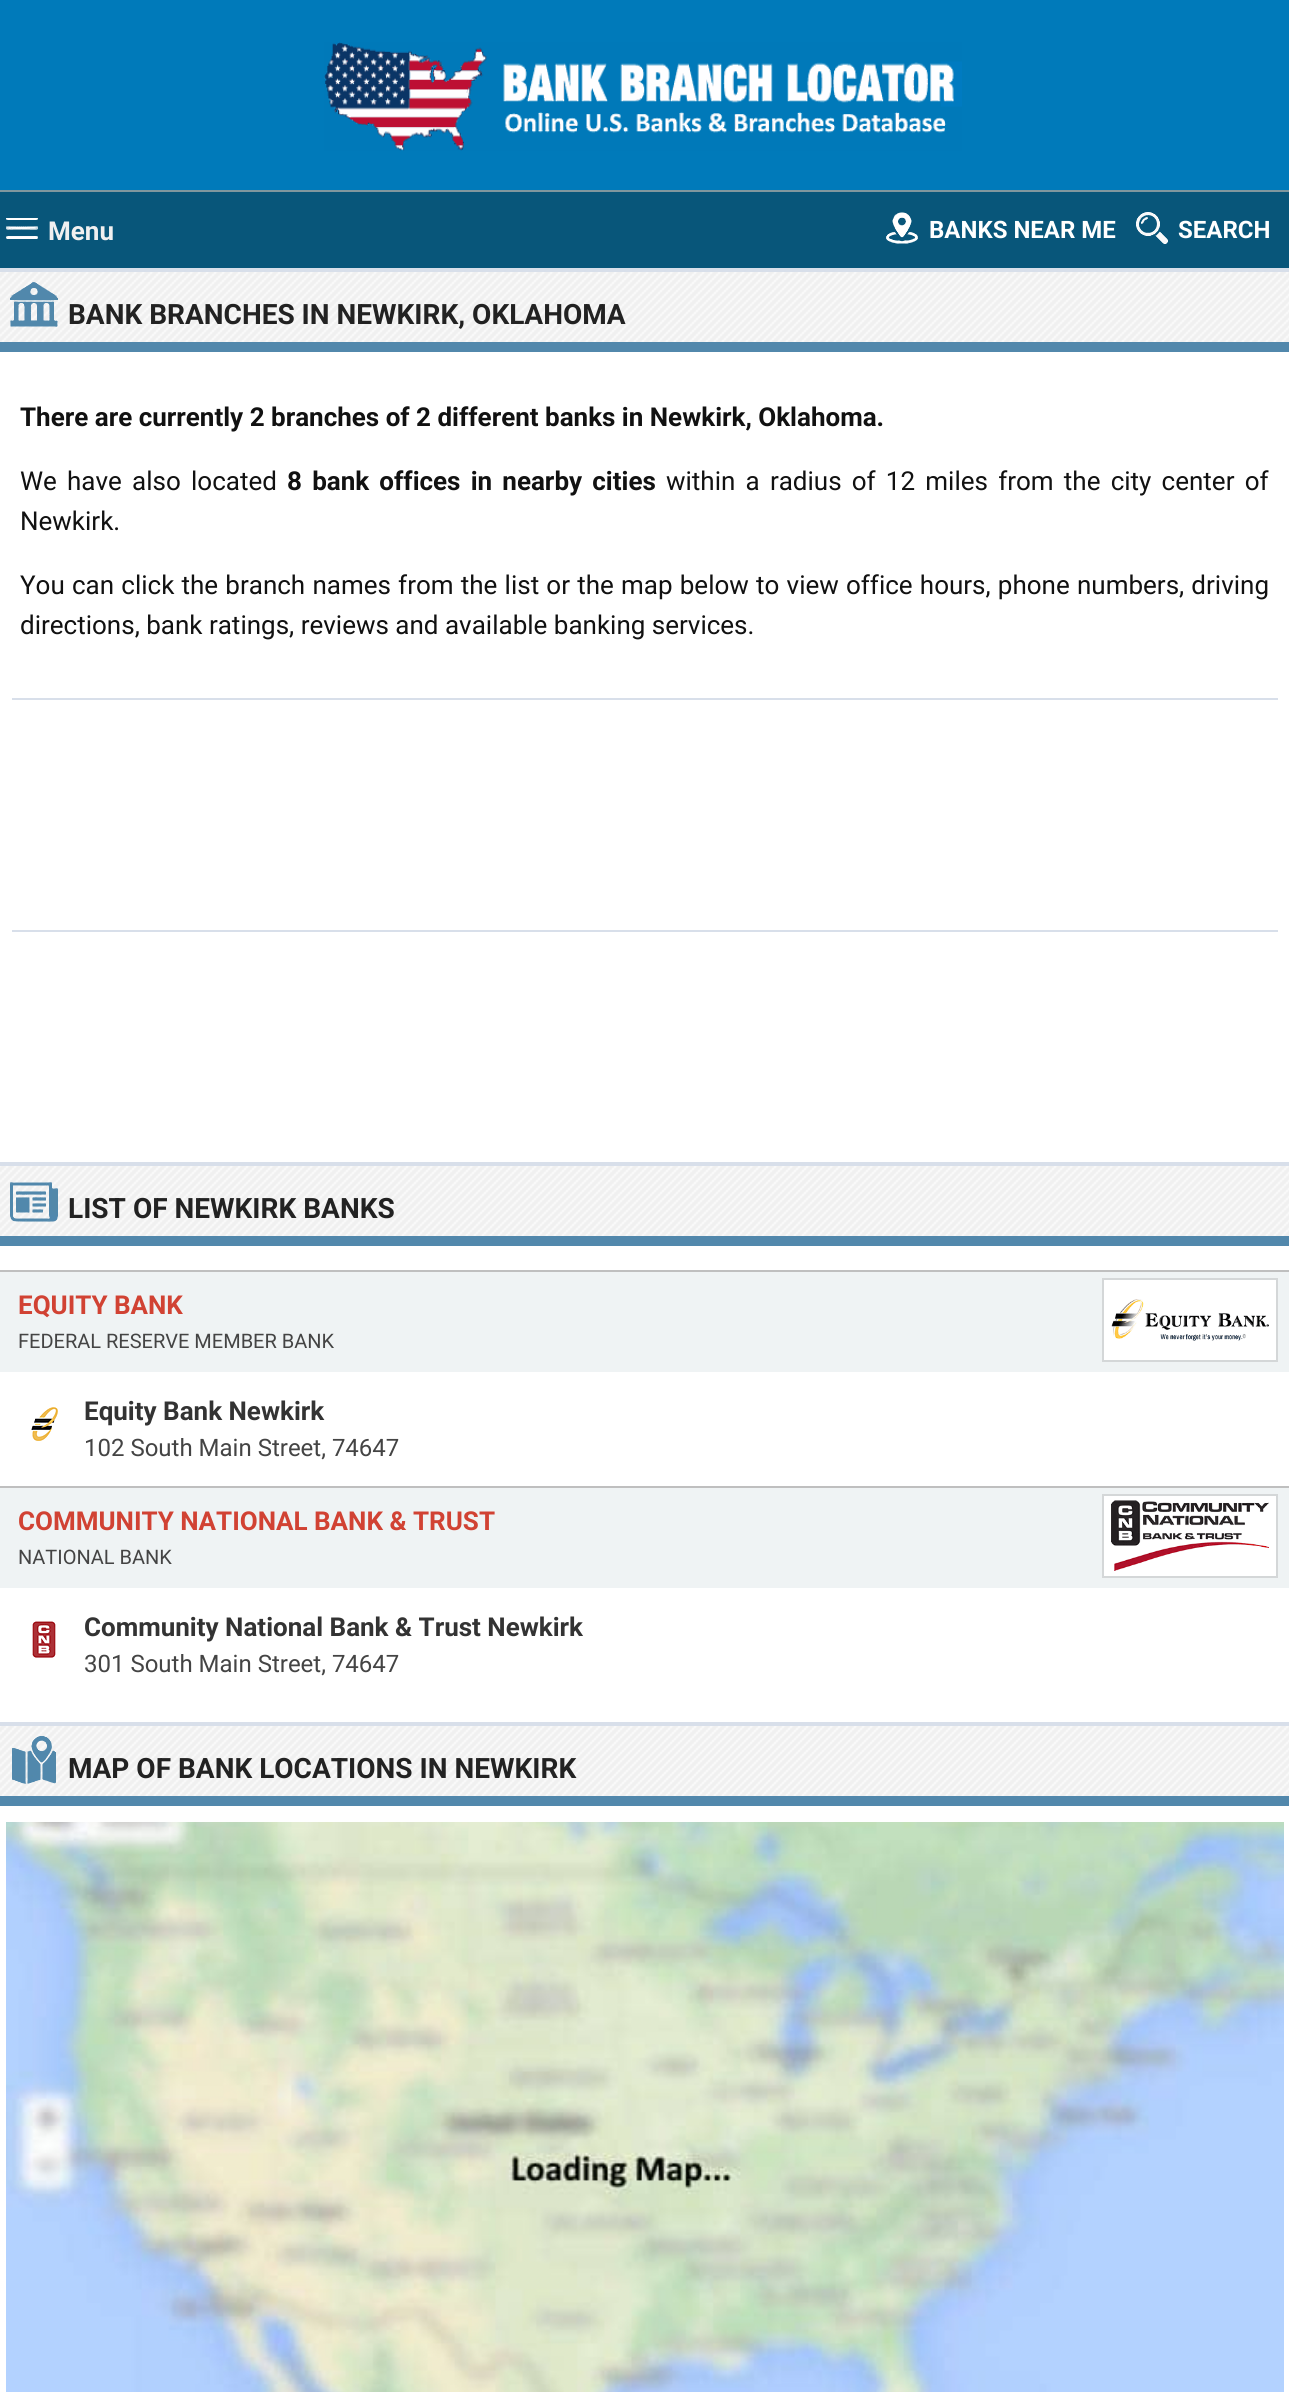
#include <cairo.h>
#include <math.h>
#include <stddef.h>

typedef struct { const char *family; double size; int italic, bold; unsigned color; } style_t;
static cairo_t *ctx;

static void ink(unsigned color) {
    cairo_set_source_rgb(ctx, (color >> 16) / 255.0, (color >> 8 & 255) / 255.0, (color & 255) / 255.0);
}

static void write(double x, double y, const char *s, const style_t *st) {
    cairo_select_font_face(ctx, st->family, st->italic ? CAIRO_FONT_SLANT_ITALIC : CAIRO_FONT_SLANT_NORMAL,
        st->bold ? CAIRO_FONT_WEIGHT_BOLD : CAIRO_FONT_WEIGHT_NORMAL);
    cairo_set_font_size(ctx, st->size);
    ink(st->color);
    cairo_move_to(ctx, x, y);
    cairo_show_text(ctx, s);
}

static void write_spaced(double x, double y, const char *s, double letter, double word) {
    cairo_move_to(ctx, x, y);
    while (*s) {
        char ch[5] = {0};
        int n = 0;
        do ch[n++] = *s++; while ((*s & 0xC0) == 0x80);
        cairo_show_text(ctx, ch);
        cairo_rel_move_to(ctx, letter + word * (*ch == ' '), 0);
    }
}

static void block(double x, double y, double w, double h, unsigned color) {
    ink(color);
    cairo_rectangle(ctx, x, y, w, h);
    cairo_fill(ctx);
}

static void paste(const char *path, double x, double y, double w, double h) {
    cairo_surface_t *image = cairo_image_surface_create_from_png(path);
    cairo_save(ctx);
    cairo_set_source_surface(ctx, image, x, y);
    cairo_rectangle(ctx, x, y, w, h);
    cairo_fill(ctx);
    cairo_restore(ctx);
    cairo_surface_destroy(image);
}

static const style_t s1 = {"Roboto", 26, 0, 1, 0xf0f0f0};
static const style_t s2 = {"Roboto", 24, 0, 1, 0xffffff};
static const style_t s3 = {"Roboto", 28, 0, 1, 0x222222};
static const style_t s4 = {"Roboto", 26, 0, 1, 0x111111};
static const style_t s5 = {"Roboto", 26, 0, 0, 0x111111};
static const style_t s6 = {"Roboto", 26, 0, 1, 0xd14233};
static const style_t s7 = {"Roboto", 20, 0, 0, 0x444444};
static const style_t s8 = {"Roboto", 26, 0, 1, 0x333333};
static const style_t s9 = {"Roboto", 24, 0, 0, 0x444444};

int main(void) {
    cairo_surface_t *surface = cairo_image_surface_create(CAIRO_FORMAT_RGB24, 1289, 2392);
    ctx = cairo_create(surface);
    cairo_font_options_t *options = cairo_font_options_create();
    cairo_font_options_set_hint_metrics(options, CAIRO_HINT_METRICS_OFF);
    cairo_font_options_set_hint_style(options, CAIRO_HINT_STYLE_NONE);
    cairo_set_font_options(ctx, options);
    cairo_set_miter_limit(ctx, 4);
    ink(0xffffff);
    cairo_paint(ctx);
    block(0, 0, 1289, 190, 0x007aba);
    paste("pic1.png", 324, 42, 638, 109);
    block(0, 192, 1289, 76, 0x08567a);
    block(0, 190, 1289, 2, 0x80979e);
    paste("pic2.png", 6, 218, 32, 21);
    write(48, 240, "Menu", &s1);
    paste("pic3.png", 886, 212, 32, 32);
    write(929, 238, "BANKS NEAR ME", &s2);
    paste("pic4.png", 1136, 212, 32, 32);
    write(1178, 238, "SEARCH", &s2);
    paste("pic5.png", 0, 272, 1289, 70);
    block(0, 268, 1289, 4, 0xd8dfea);
    block(0, 342, 1289, 10, 0x5288ac);
    paste("pic6.png", 10, 282, 48, 45);
    write(68, 324, "BANK BRANCHES IN NEWKIRK, OKLAHOMA", &s3);
    write(20, 426, "There are currently 2 branches of 2 different banks in Newkirk, Oklahoma.", &s4);
    cairo_select_font_face(ctx, "Roboto", CAIRO_FONT_SLANT_NORMAL, CAIRO_FONT_WEIGHT_NORMAL);
    write_spaced(20, 490, "We have also located", 0, 3.75);
    cairo_select_font_face(ctx, "Roboto", CAIRO_FONT_SLANT_NORMAL, CAIRO_FONT_WEIGHT_BOLD);
    write_spaced(287, 490, "8 bank offices in nearby cities", 0, 3.75);
    cairo_select_font_face(ctx, "Roboto", CAIRO_FONT_SLANT_NORMAL, CAIRO_FONT_WEIGHT_NORMAL);
    write_spaced(666, 490, "within a radius of 12 miles from the city center of", 0, 3.75);
    write(20, 530, "Newkirk.", &s5);
    write_spaced(20, 594, "You can click the branch names from the list or the map below to view office hours, phone numbers, driving", 0, 0.75);
    write(20, 634, "directions, bank ratings, reviews and available banking services.", &s5);
    block(12, 698, 1266, 2, 0xd8dfea);
    block(12, 930, 1266, 2, 0xd8dfea);
    paste("pic5.png", 0, 1166, 1289, 70);
    block(0, 1162, 1289, 4, 0xd8dfea);
    block(0, 1236, 1289, 10, 0x5288ac);
    paste("pic7.png", 10, 1182, 48, 40);
    write(68, 1218, "LIST OF NEWKIRK BANKS", &s3);
    block(0, 1272, 1289, 100, 0xeff3f4);
    block(0, 1270, 1289, 2, 0xbfbfbf);
    write(18, 1314, "EQUITY BANK", &s6);
    write(18, 1348, "FEDERAL RESERVE MEMBER BANK", &s7);
    cairo_rectangle(ctx, 1103, 1279, 174, 82);
    ink(0xd4d7d8);
    cairo_stroke(ctx);
    paste("pic8.png", 1104, 1280, 172, 80);
    paste("pic9.png", 31, 1407, 27, 34);
    write(84, 1420, "Equity Bank Newkirk", &s8);
    write(84, 1456, "102 South Main Street, 74647", &s9);
    block(0, 1488, 1289, 100, 0xeff3f4);
    block(0, 1486, 1289, 2, 0xbfbfbf);
    write(18, 1530, "COMMUNITY NATIONAL BANK & TRUST", &s6);
    write(18, 1564, "NATIONAL BANK", &s7);
    cairo_rectangle(ctx, 1103, 1495, 174, 82);
    ink(0xd4d7d8);
    cairo_stroke(ctx);
    paste("pic10.png", 1104, 1496, 172, 80);
    paste("pic11.png", 32, 1621, 24, 37);
    write(84, 1636, "Community National Bank & Trust Newkirk", &s8);
    write(84, 1672, "301 South Main Street, 74647", &s9);
    paste("pic5.png", 0, 1726, 1289, 70);
    block(0, 1722, 1289, 4, 0xd8dfea);
    block(0, 1796, 1289, 10, 0x5288ac);
    paste("pic12.png", 12, 1736, 44, 48);
    write(68, 1778, "MAP OF BANK LOCATIONS IN NEWKIRK", &s3);
    paste("pic13.png", 6, 1822, 1278, 570);
    cairo_surface_write_to_png(surface, "screenshot.png");
    cairo_font_options_destroy(options);
    cairo_destroy(ctx);
    cairo_surface_destroy(surface);
    return 0;
}
